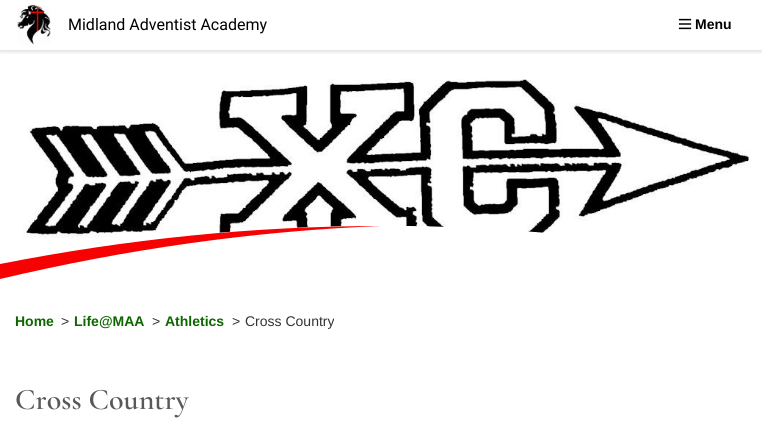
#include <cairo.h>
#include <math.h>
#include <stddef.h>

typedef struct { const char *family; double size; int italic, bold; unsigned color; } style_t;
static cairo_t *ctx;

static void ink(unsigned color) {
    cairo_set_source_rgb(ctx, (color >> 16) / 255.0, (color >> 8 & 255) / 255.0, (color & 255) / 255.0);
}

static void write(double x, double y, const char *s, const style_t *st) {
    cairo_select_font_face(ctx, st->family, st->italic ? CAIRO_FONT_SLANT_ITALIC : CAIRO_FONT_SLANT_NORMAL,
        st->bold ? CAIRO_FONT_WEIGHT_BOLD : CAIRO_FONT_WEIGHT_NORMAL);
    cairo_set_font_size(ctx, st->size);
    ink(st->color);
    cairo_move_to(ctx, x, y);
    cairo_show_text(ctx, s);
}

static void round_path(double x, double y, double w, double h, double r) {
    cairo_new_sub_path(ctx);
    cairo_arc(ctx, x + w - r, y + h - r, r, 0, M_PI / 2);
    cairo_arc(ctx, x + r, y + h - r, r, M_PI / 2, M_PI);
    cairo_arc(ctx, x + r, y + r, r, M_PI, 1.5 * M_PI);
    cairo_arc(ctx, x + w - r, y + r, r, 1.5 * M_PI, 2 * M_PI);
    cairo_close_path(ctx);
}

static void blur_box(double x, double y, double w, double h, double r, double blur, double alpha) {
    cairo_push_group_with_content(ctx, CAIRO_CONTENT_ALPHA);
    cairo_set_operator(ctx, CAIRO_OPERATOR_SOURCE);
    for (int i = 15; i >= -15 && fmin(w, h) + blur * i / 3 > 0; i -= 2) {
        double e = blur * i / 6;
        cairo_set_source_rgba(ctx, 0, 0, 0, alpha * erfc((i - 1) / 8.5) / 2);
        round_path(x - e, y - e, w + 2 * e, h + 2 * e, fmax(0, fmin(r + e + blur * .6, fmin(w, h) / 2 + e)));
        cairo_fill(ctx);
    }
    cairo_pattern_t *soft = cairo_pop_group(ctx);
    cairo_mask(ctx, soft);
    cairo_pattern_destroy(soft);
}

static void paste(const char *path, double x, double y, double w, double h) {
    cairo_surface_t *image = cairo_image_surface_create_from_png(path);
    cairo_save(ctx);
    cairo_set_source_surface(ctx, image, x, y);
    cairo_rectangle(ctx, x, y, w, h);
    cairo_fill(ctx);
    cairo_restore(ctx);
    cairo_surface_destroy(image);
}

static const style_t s1 = {"Roboto", 16, 0, 0, 0x000000};
static const style_t s2 = {"Liberation Sans", 14, 0, 1, 0x000000};
static const style_t s3 = {"Liberation Sans", 14, 0, 1, 0x0e6600};
static const style_t s4 = {"Liberation Sans", 14, 0, 0, 0x333333};
static const style_t s5 = {"Cormorant Garamond SemiBold", 30, 0, 0, 0x595959};

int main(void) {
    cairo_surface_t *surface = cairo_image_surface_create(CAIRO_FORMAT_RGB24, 762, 437);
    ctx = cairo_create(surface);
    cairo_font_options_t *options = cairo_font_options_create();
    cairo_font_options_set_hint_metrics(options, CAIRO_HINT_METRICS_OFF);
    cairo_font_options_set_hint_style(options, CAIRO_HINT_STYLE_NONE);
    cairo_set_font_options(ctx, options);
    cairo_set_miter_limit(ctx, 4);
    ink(0xffffff);
    cairo_paint(ctx);
    cairo_save(ctx);
    cairo_rectangle(ctx, 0, 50, 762, 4);
    cairo_clip(ctx);
    ink(0x000000);
    blur_box(0, 2, 762, 50, 0, 2, 0.13);
    cairo_restore(ctx);
    paste("pic1.png", 17, 5, 34, 40);
    write(68, 30, "Midland Adventist Academy", &s1);
    paste("pic2.png", 678, 18, 14, 12);
    write(695, 29, "Menu", &s2);
    paste("pic3.png", 23, 79, 727, 177);
    cairo_save(ctx);
    cairo_rectangle(ctx, 0, 226, 762, 54);
    cairo_clip(ctx);
    ink(0xffffff);
    cairo_new_path(ctx);
    cairo_move_to(ctx, 0, 279);
    cairo_line_to(ctx, 762, 279);
    cairo_line_to(ctx, 762, 264);
    cairo_curve_to(ctx, 508, 213, 254, 213, 0, 264);
    cairo_fill(ctx);
    cairo_restore(ctx);
    ink(0xf70202);
    cairo_new_path(ctx);
    cairo_move_to(ctx, 0, 264);
    cairo_curve_to(ctx, 127, 239, 254, 226, 381, 226);
    cairo_curve_to(ctx, 254, 231, 127, 249, 0, 279);
    cairo_close_path(ctx);
    cairo_fill(ctx);
    write(15, 326, "Home", &s3);
    write(61, 326, ">", &s4);
    write(74, 326, "Life@MAA", &s3);
    write(152, 326, ">", &s4);
    write(165, 326, "Athletics", &s3);
    write(232, 326, ">", &s4);
    write(245, 326, "Cross Country", &s4);
    write(15, 409, "Cross Country", &s5);
    cairo_surface_write_to_png(surface, "screenshot.png");
    cairo_font_options_destroy(options);
    cairo_destroy(ctx);
    cairo_surface_destroy(surface);
    return 0;
}
